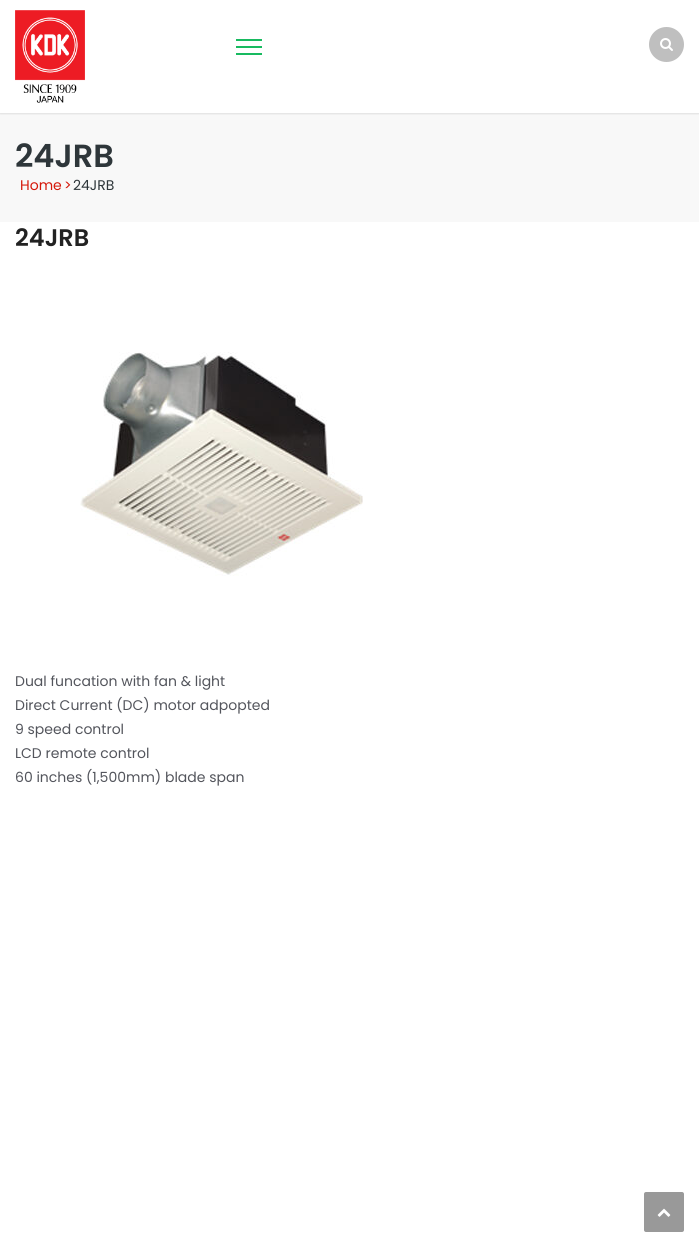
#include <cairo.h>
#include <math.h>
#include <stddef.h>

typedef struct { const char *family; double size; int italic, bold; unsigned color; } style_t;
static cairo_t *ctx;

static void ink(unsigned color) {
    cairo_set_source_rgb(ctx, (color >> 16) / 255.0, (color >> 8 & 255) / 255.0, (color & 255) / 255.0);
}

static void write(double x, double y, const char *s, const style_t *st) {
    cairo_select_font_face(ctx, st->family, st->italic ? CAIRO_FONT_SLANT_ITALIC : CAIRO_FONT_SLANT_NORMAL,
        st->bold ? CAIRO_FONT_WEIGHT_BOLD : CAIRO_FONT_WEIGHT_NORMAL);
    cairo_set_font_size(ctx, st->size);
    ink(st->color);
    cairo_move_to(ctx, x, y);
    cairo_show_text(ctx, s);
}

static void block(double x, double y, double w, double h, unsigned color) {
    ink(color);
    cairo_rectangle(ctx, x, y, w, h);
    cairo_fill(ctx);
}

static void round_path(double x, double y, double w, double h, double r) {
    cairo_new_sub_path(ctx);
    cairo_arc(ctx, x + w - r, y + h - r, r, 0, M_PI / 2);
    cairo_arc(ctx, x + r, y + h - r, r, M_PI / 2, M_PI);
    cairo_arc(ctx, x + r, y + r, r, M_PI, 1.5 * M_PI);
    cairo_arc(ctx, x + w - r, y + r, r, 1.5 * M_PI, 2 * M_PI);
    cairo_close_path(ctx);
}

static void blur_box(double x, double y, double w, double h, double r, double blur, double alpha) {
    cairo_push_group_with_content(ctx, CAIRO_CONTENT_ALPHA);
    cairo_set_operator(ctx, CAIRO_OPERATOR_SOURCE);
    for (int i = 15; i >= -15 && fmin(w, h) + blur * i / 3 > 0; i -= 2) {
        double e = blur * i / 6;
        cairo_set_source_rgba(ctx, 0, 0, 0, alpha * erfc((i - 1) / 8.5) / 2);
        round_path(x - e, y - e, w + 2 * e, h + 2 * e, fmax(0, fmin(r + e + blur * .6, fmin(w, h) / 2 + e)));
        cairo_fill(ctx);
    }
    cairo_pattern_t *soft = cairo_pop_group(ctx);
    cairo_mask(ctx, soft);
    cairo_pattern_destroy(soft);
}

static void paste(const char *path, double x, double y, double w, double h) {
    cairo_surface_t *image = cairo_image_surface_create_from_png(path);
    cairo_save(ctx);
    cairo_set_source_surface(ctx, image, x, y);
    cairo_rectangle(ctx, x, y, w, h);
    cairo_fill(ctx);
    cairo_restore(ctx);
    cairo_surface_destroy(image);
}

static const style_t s1 = {"Poppins SemiBold", 32, 0, 0, 0x2e363a};
static const style_t s2 = {"Poppins", 14, 0, 0, 0xd51709};
static const style_t s3 = {"Poppins", 14, 0, 0, 0x2e363a};
static const style_t s4 = {"Poppins SemiBold", 24, 0, 0, 0x222222};
static const style_t s5 = {"Poppins", 14, 0, 0, 0x53555c};

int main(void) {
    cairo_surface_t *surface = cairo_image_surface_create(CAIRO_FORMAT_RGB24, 699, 1247);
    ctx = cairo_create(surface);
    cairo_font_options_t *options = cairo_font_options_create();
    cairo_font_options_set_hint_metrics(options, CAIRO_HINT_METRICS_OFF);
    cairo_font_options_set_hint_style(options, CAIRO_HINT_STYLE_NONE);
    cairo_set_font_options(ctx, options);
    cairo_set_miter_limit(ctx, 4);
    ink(0xffffff);
    cairo_paint(ctx);
    block(0, 113, 699, 109, 0xf8f8f8);
    cairo_save(ctx);
    cairo_rectangle(ctx, 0, 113, 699, 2);
    cairo_clip(ctx);
    ink(0x000000);
    blur_box(0, 1, 699, 113, 0, 1, 0.1);
    cairo_restore(ctx);
    paste("pic1.png", 15, 10, 70, 93);
    block(236, 39, 26, 2, 0x18ba60);
    block(236, 46, 26, 2, 0x18ba60);
    block(236, 53, 26, 2, 0x18ba60);
    ink(0xbfbfbf);
    cairo_arc(ctx, 666.5, 44.5, 17.5, 0, 2 * M_PI);
    cairo_fill(ctx);
    paste("pic2.png", 660, 38, 13, 13);
    write(15, 167, "24JRB", &s1);
    write(20, 190, "Home", &s2);
    write(64, 190, ">", &s2);
    write(73, 190, "24JRB", &s3);
    write(15, 246, "24JRB", &s4);
    paste("pic3.png", 80, 352, 283, 224);
    write(15, 686, "Dual funcation with fan & light", &s5);
    write(15, 710, "Direct Current (DC) motor adpopted", &s5);
    write(15, 734, "9 speed control", &s5);
    write(15, 758, "LCD remote control", &s5);
    write(15, 782, "60 inches (1,500mm) blade span", &s5);
    ink(0x999999);
    round_path(644, 1192, 40, 40, 2);
    cairo_fill(ctx);
    paste("pic4.png", 657, 1208, 14, 9);
    cairo_surface_write_to_png(surface, "screenshot.png");
    cairo_font_options_destroy(options);
    cairo_destroy(ctx);
    cairo_surface_destroy(surface);
    return 0;
}
